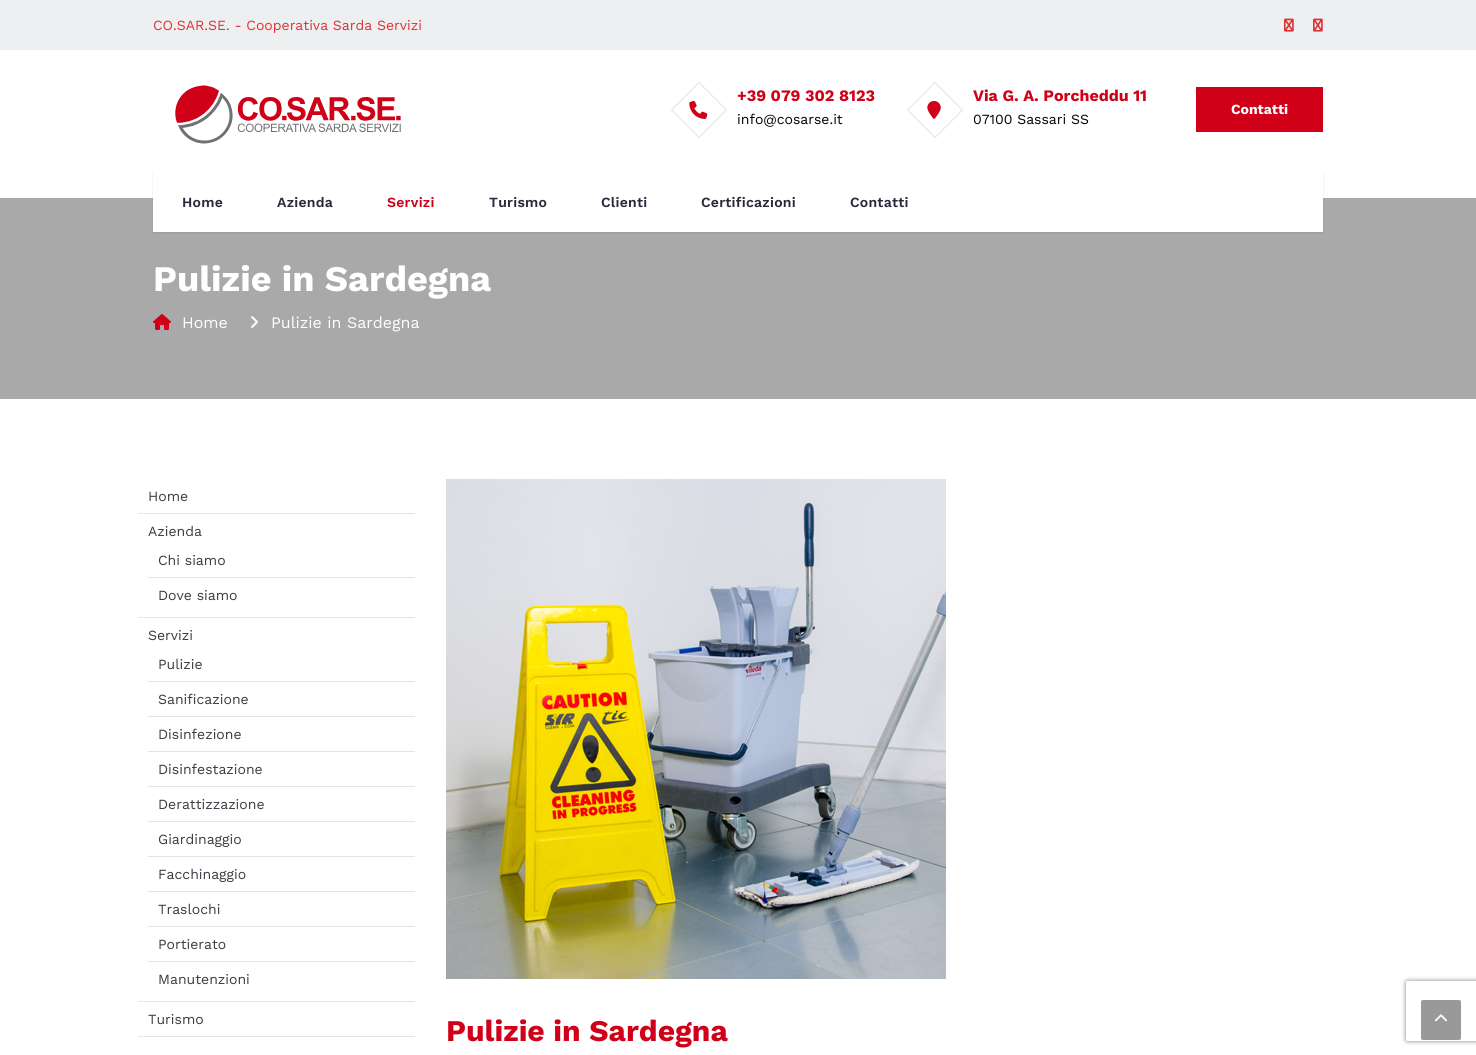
#include <cairo.h>
#include <math.h>
#include <stddef.h>

typedef struct { const char *family; double size; int italic, bold; unsigned color; } style_t;
static cairo_t *ctx;

static void ink(unsigned color) {
    cairo_set_source_rgb(ctx, (color >> 16) / 255.0, (color >> 8 & 255) / 255.0, (color & 255) / 255.0);
}

static void write(double x, double y, const char *s, const style_t *st) {
    cairo_select_font_face(ctx, st->family, st->italic ? CAIRO_FONT_SLANT_ITALIC : CAIRO_FONT_SLANT_NORMAL,
        st->bold ? CAIRO_FONT_WEIGHT_BOLD : CAIRO_FONT_WEIGHT_NORMAL);
    cairo_set_font_size(ctx, st->size);
    ink(st->color);
    cairo_move_to(ctx, x, y);
    cairo_show_text(ctx, s);
}

static void write_spaced(double x, double y, const char *s, double letter, double word) {
    cairo_move_to(ctx, x, y);
    while (*s) {
        char ch[5] = {0};
        int n = 0;
        do ch[n++] = *s++; while ((*s & 0xC0) == 0x80);
        cairo_show_text(ctx, ch);
        cairo_rel_move_to(ctx, letter + word * (*ch == ' '), 0);
    }
}

static void block(double x, double y, double w, double h, unsigned color) {
    ink(color);
    cairo_rectangle(ctx, x, y, w, h);
    cairo_fill(ctx);
}

static void round_path(double x, double y, double w, double h, double r) {
    cairo_new_sub_path(ctx);
    cairo_arc(ctx, x + w - r, y + h - r, r, 0, M_PI / 2);
    cairo_arc(ctx, x + r, y + h - r, r, M_PI / 2, M_PI);
    cairo_arc(ctx, x + r, y + r, r, M_PI, 1.5 * M_PI);
    cairo_arc(ctx, x + w - r, y + r, r, 1.5 * M_PI, 2 * M_PI);
    cairo_close_path(ctx);
}

static void blur_box(double x, double y, double w, double h, double r, double blur, double alpha) {
    cairo_push_group_with_content(ctx, CAIRO_CONTENT_ALPHA);
    cairo_set_operator(ctx, CAIRO_OPERATOR_SOURCE);
    for (int i = 15; i >= -15 && fmin(w, h) + blur * i / 3 > 0; i -= 2) {
        double e = blur * i / 6;
        cairo_set_source_rgba(ctx, 0, 0, 0, alpha * erfc((i - 1) / 8.5) / 2);
        round_path(x - e, y - e, w + 2 * e, h + 2 * e, fmax(0, fmin(r + e + blur * .6, fmin(w, h) / 2 + e)));
        cairo_fill(ctx);
    }
    cairo_pattern_t *soft = cairo_pop_group(ctx);
    cairo_mask(ctx, soft);
    cairo_pattern_destroy(soft);
}

static void paste(const char *path, double x, double y, double w, double h) {
    cairo_surface_t *image = cairo_image_surface_create_from_png(path);
    cairo_save(ctx);
    cairo_set_source_surface(ctx, image, x, y);
    cairo_rectangle(ctx, x, y, w, h);
    cairo_fill(ctx);
    cairo_restore(ctx);
    cairo_surface_destroy(image);
}

static const style_t s1 = {"Work Sans", 14, 0, 0, 0xdd3333};
static const style_t s2 = {"Work Sans", 16, 0, 1, 0xd10019};
static const style_t s3 = {"Work Sans", 14, 0, 0, 0x0a0000};
static const style_t s4 = {"Work Sans", 14, 0, 1, 0xffffff};
static const style_t s5 = {"Work Sans", 36, 0, 1, 0xffffff};
static const style_t s6 = {"Work Sans", 16, 0, 0, 0xffffff};
static const style_t s7 = {"Work Sans", 14, 0, 0, 0x3c3a42};
static const style_t s8 = {"Work Sans", 30, 0, 1, 0xd10019};

int main(void) {
    cairo_surface_t *surface = cairo_image_surface_create(CAIRO_FORMAT_RGB24, 1476, 1055);
    ctx = cairo_create(surface);
    cairo_font_options_t *options = cairo_font_options_create();
    cairo_font_options_set_hint_metrics(options, CAIRO_HINT_METRICS_OFF);
    cairo_font_options_set_hint_style(options, CAIRO_HINT_STYLE_NONE);
    cairo_set_font_options(ctx, options);
    cairo_set_miter_limit(ctx, 4);
    ink(0xffffff);
    cairo_paint(ctx);
    block(0, 0, 1476, 50, 0xedeff1);
    write(153, 30, "CO.SAR.SE. - Cooperativa Sarda Servizi", &s1);
    paste("pic1.png", 1284, 18, 10, 14);
    paste("pic1.png", 1313, 18, 10, 14);
    paste("pic2.png", 175, 85, 226, 59);
    cairo_new_path(ctx);
    cairo_move_to(ctx, 699, 82.5);
    cairo_line_to(ctx, 726.5, 110);
    cairo_line_to(ctx, 699, 137.5);
    cairo_line_to(ctx, 671.5, 110);
    cairo_close_path(ctx);
    ink(0xe4e4e6);
    cairo_set_line_width(ctx, 1);
    cairo_stroke(ctx);
    paste("pic3.png", 689, 101, 19, 18);
    write(737, 101, "+39 079 302 8123", &s2);
    write(737, 124, "info@cosarse.it", &s3);
    cairo_new_path(ctx);
    cairo_move_to(ctx, 935, 82.5);
    cairo_line_to(ctx, 962.5, 110);
    cairo_line_to(ctx, 935, 137.5);
    cairo_line_to(ctx, 907.5, 110);
    cairo_close_path(ctx);
    ink(0xe4e4e6);
    cairo_stroke(ctx);
    paste("pic4.png", 927, 101, 14, 18);
    write(973, 101, "Via G. A. Porcheddu 11", &s2);
    write(973, 124, "07100 Sassari SS", &s3);
    block(1196, 87, 127, 45, 0xd10019);
    write(1231, 114, "Contatti", &s4);
    block(0, 198, 1476, 201, 0xa9a9a9);
    ink(0x000000);
    blur_box(153, 173, 1170, 60, 0, 1, 0.1);
    block(153, 172, 1170, 60, 0xffffff);
    cairo_select_font_face(ctx, "Work Sans SemiBold", CAIRO_FONT_SLANT_NORMAL, CAIRO_FONT_WEIGHT_NORMAL);
    ink(0x28293a);
    write_spaced(182, 207, "Home", 0.25, 0);
    write_spaced(277, 207, "Azienda", 0.25, 0);
    ink(0xd10019);
    write_spaced(387, 207, "Servizi", 0.25, 0);
    ink(0x28293a);
    write_spaced(489, 207, "Turismo", 0.25, 0);
    write_spaced(601, 207, "Clienti", 0.25, 0);
    write_spaced(701, 207, "Certificazioni", 0.25, 0);
    write_spaced(850, 207, "Contatti", 0.25, 0);
    write(153, 291, "Pulizie in Sardegna", &s5);
    paste("pic5.png", 153, 314, 18, 16);
    write(182, 328, "Home", &s6);
    paste("pic6.png", 251, 316, 7, 12);
    write(271, 328, "Pulizie in Sardegna", &s6);
    block(138, 513, 277, 1, 0xe5e5e5);
    write(148, 501, "Home", &s7);
    block(138, 617, 277, 1, 0xe5e5e5);
    write(148, 536, "Azienda", &s7);
    block(148, 577, 267, 1, 0xe5e5e5);
    write(158, 565, "Chi siamo", &s7);
    write(158, 600, "Dove siamo", &s7);
    block(138, 1001, 277, 1, 0xe5e5e5);
    write(148, 640, "Servizi", &s7);
    block(148, 681, 267, 1, 0xe5e5e5);
    write(158, 669, "Pulizie", &s7);
    block(148, 716, 267, 1, 0xe5e5e5);
    write(158, 704, "Sanificazione", &s7);
    block(148, 751, 267, 1, 0xe5e5e5);
    write(158, 739, "Disinfezione", &s7);
    block(148, 786, 267, 1, 0xe5e5e5);
    write(158, 774, "Disinfestazione", &s7);
    block(148, 821, 267, 1, 0xe5e5e5);
    write(158, 809, "Derattizzazione", &s7);
    block(148, 856, 267, 1, 0xe5e5e5);
    write(158, 844, "Giardinaggio", &s7);
    block(148, 891, 267, 1, 0xe5e5e5);
    write(158, 879, "Facchinaggio", &s7);
    block(148, 926, 267, 1, 0xe5e5e5);
    write(158, 914, "Traslochi", &s7);
    block(148, 961, 267, 1, 0xe5e5e5);
    write(158, 949, "Portierato", &s7);
    write(158, 984, "Manutenzioni", &s7);
    block(138, 1036, 277, 1, 0xe5e5e5);
    write(148, 1024, "Turismo", &s7);
    paste("pic7.png", 446, 479, 500, 500);
    write(446, 1041, "Pulizie in Sardegna", &s8);
    cairo_save(ctx);
    cairo_set_fill_rule(ctx, CAIRO_FILL_RULE_EVEN_ODD);
    cairo_new_path(ctx);
    cairo_move_to(ctx, 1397, 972);
    cairo_line_to(ctx, 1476, 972);
    cairo_line_to(ctx, 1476, 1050);
    cairo_line_to(ctx, 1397, 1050);
    cairo_close_path(ctx);
    cairo_move_to(ctx, 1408, 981);
    cairo_line_to(ctx, 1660, 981);
    cairo_curve_to(ctx, 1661, 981, 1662, 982, 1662, 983);
    cairo_line_to(ctx, 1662, 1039);
    cairo_curve_to(ctx, 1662, 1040, 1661, 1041, 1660, 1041);
    cairo_line_to(ctx, 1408, 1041);
    cairo_curve_to(ctx, 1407, 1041, 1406, 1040, 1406, 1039);
    cairo_line_to(ctx, 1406, 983);
    cairo_curve_to(ctx, 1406, 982, 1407, 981, 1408, 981);
    cairo_close_path(ctx);
    cairo_clip(ctx);
    ink(0x808080);
    blur_box(1406, 981, 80, 60, 2, 2.5, 1);
    cairo_restore(ctx);
    ink(0x999999);
    round_path(1421, 1000, 40, 40, 2);
    cairo_fill(ctx);
    paste("pic8.png", 1435, 1014, 12, 8);
    cairo_surface_write_to_png(surface, "screenshot.png");
    cairo_font_options_destroy(options);
    cairo_destroy(ctx);
    cairo_surface_destroy(surface);
    return 0;
}
